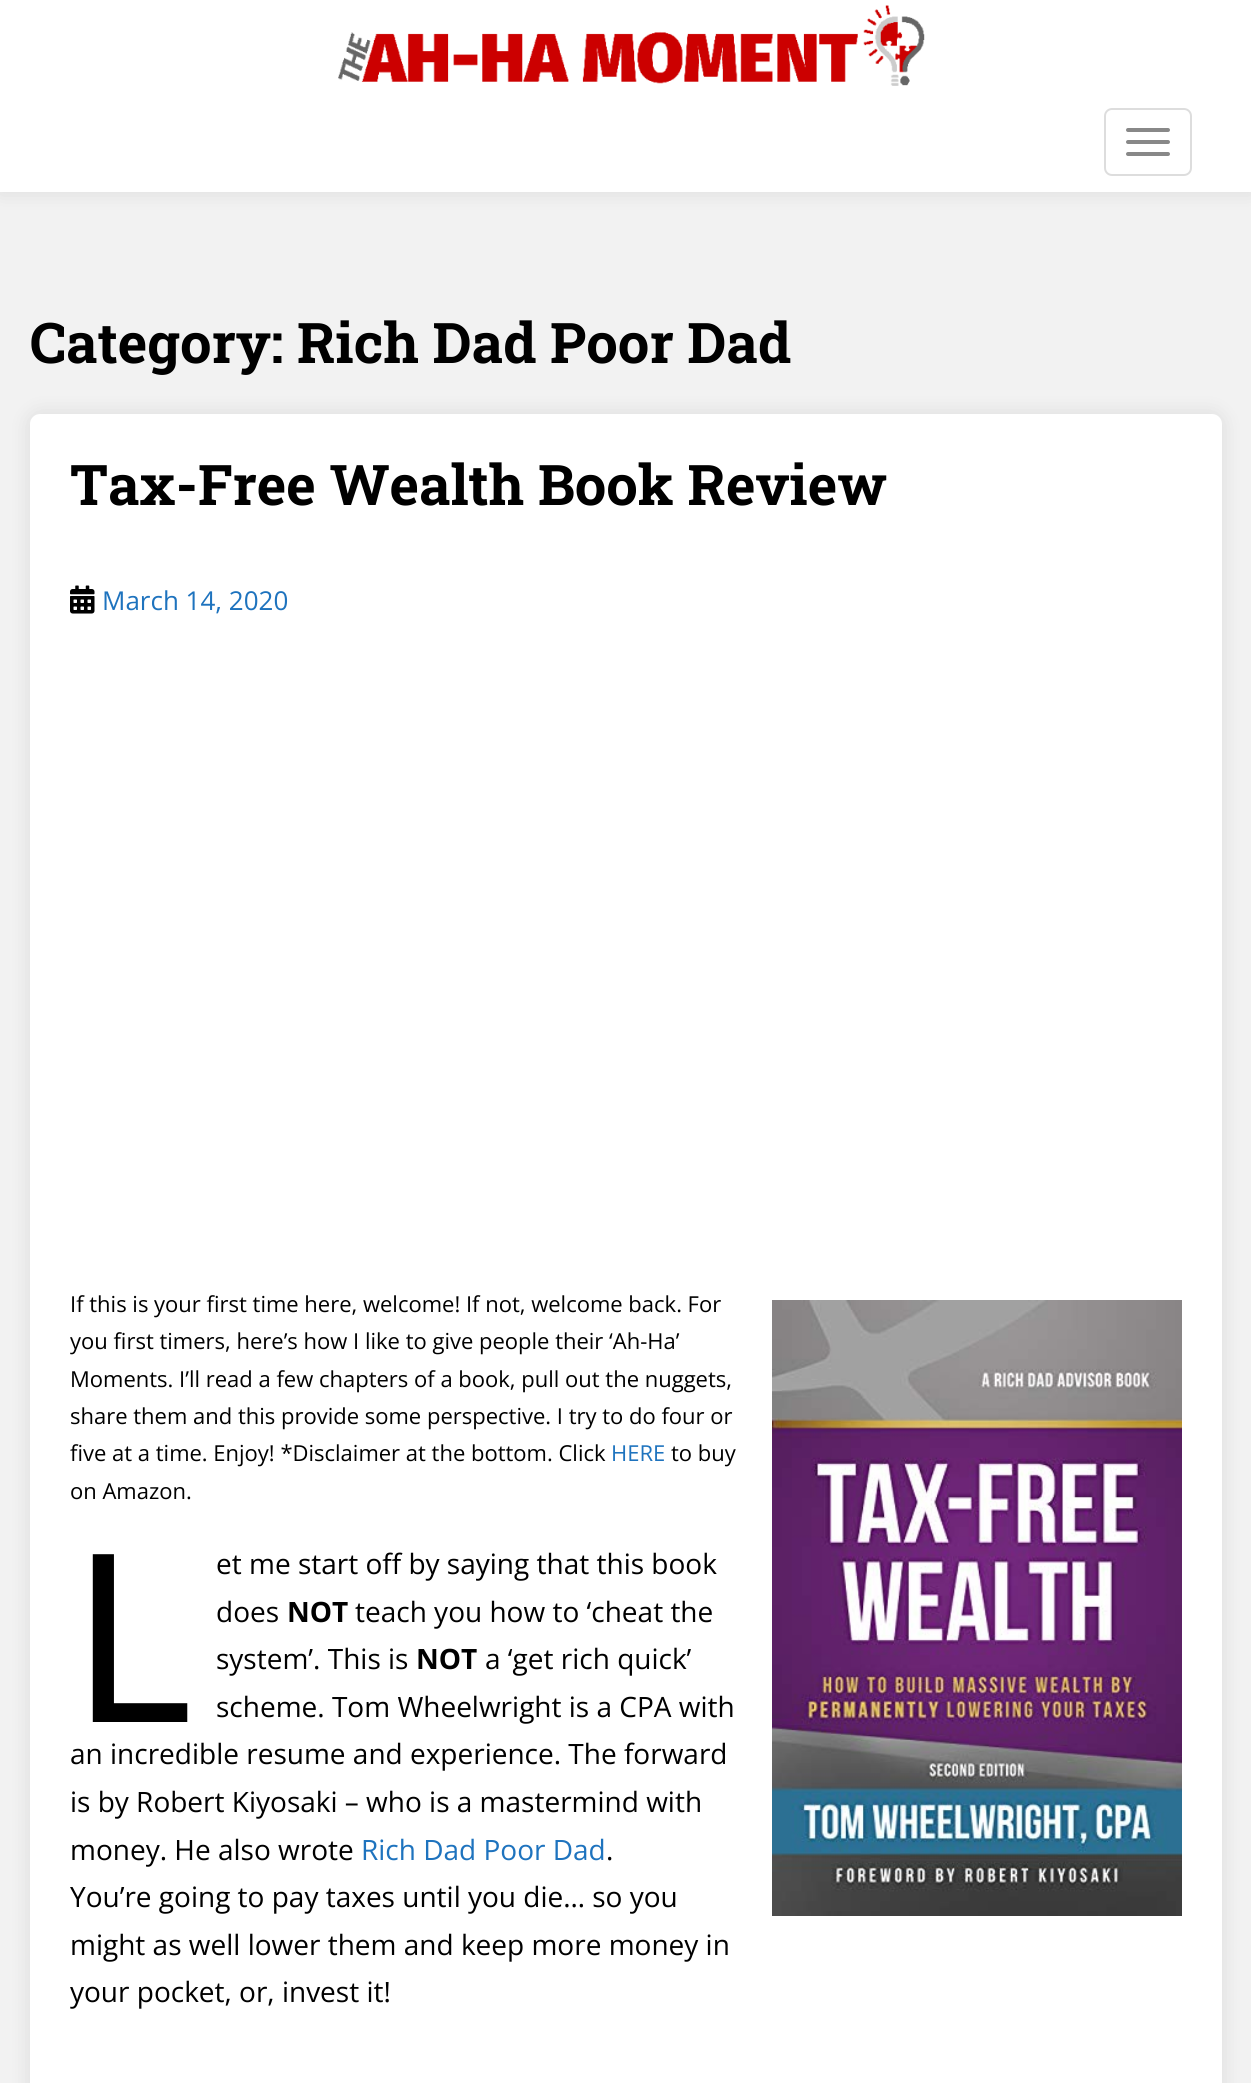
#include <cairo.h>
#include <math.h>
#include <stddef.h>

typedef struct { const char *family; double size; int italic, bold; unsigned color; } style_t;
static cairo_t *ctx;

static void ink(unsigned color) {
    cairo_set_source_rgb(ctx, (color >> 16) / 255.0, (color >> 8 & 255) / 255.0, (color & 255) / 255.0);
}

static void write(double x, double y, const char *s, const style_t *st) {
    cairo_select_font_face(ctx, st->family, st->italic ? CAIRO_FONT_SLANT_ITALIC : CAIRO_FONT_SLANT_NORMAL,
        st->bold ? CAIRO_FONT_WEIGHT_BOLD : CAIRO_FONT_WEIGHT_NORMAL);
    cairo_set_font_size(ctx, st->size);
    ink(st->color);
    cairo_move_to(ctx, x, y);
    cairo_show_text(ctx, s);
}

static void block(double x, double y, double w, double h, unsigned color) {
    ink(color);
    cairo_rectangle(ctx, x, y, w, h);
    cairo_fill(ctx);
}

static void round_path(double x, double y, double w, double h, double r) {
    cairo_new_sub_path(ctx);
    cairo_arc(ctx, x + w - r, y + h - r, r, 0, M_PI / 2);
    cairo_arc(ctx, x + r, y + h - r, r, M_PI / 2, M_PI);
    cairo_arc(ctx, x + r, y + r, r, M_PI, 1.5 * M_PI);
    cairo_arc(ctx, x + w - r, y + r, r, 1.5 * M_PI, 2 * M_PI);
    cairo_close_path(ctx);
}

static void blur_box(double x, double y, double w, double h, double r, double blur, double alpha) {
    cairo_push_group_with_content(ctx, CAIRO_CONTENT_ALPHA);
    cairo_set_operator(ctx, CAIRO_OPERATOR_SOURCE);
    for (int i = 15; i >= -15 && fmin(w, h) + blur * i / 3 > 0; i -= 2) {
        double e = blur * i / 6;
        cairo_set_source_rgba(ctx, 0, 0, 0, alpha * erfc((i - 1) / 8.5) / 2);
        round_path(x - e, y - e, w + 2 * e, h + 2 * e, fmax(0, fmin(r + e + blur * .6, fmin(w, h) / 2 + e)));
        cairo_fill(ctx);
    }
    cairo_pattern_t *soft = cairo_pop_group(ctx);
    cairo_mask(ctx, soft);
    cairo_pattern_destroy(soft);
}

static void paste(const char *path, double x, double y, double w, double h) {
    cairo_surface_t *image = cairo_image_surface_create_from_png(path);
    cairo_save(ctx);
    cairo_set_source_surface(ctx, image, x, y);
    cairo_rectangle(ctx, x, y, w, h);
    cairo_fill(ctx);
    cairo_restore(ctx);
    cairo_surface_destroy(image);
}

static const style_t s1 = {"Roboto Slab", 56, 0, 1, 0x000000};
static const style_t s2 = {"Open Sans", 26, 0, 0, 0x1e73be};
static const style_t s3 = {"Open Sans", 22, 0, 0, 0x000000};
static const style_t s4 = {"Open Sans", 22, 0, 0, 0x1e73be};
static const style_t s5 = {"Noto Sans", 235, 0, 0, 0x000000};
static const style_t s6 = {"Open Sans", 28, 0, 0, 0x000000};
static const style_t s7 = {"Open Sans", 28, 0, 1, 0x000000};
static const style_t s8 = {"Open Sans", 28, 0, 0, 0x1e73be};

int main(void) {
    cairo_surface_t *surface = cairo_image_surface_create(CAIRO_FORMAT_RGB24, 1251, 2083);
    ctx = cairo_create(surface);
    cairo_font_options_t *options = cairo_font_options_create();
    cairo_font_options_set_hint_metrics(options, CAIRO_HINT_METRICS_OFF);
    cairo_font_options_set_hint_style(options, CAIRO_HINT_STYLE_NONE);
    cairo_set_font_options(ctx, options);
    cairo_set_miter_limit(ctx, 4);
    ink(0xf2f2f2);
    cairo_paint(ctx);
    ink(0x000000);
    blur_box(0, 0, 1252, 192, 0, 10, 0.1);
    block(0, 0, 1251, 192, 0xffffff);
    paste("pic1.png", 338, 5, 587, 81);
    round_path(1105, 109, 86, 66, 7);
    ink(0xdddddd);
    cairo_stroke(ctx);
    ink(0x888888);
    round_path(1126, 128, 44, 4, 2);
    cairo_fill(ctx);
    round_path(1126, 140, 44, 4, 2);
    cairo_fill(ctx);
    round_path(1126, 152, 44, 4, 2);
    cairo_fill(ctx);
    write(30, 363, "Category: Rich Dad Poor Dad", &s1);
    ink(0x000000);
    blur_box(30, 414, 1192, 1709, 10, 10, 0.1);
    ink(0xffffff);
    round_path(30, 414, 1192, 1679, 10);
    cairo_fill(ctx);
    write(70, 505, "Tax-Free Wealth Book Review", &s1);
    paste("pic2.png", 70, 585, 25, 29);
    write(102, 610, "March 14, 2020", &s2);
    write(70, 1312, "If this is your first time here, welcome! If not, welcome back. For", &s3);
    write(70, 1349, "you first timers, here’s how I like to give people their ‘Ah-Ha’", &s3);
    write(70, 1387, "Moments. I’ll read a few chapters of a book, pull out the nuggets,", &s3);
    write(70, 1424, "share them and this provide some perspective. I try to do four or", &s3);
    write(70, 1461, "five at a time. Enjoy! *Disclaimer at the bottom. Click", &s3);
    write(611, 1461, "HERE", &s4);
    write(671, 1461, "to buy", &s3);
    write(70, 1499, "on Amazon.", &s3);
    paste("pic3.png", 772, 1300, 410, 616);
    write(70, 1722, "L", &s5);
    write(216, 1574, "et me start off by saying that this book", &s6);
    write(216, 1622, "does", &s6);
    write(287, 1622, "NOT", &s7);
    write(355, 1622, "teach you how to ‘cheat the", &s6);
    write(216, 1669, "system’. This is", &s6);
    write(416, 1669, "NOT", &s7);
    write(485, 1669, "a ‘get rich quick’", &s6);
    write(216, 1717, "scheme. Tom Wheelwright is a CPA with", &s6);
    write(70, 1764, "an incredible resume and experience. The forward", &s6);
    write(70, 1812, "is by Robert Kiyosaki – who is a mastermind with", &s6);
    write(70, 1860, "money. He also wrote", &s6);
    write(361, 1860, "Rich Dad Poor Dad", &s8);
    write(606, 1860, ".", &s6);
    write(70, 1907, "You’re going to pay taxes until you die… so you", &s6);
    write(70, 1955, "might as well lower them and keep more money in", &s6);
    write(70, 2002, "your pocket, or, invest it!", &s6);
    cairo_surface_write_to_png(surface, "screenshot.png");
    cairo_font_options_destroy(options);
    cairo_destroy(ctx);
    cairo_surface_destroy(surface);
    return 0;
}
